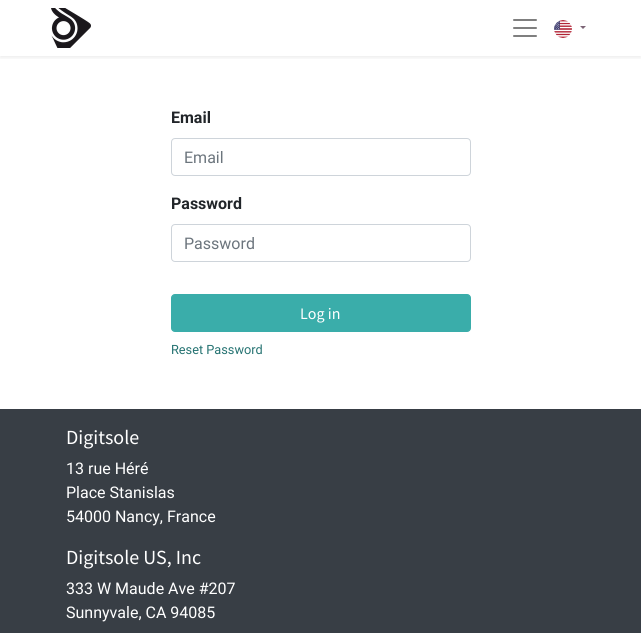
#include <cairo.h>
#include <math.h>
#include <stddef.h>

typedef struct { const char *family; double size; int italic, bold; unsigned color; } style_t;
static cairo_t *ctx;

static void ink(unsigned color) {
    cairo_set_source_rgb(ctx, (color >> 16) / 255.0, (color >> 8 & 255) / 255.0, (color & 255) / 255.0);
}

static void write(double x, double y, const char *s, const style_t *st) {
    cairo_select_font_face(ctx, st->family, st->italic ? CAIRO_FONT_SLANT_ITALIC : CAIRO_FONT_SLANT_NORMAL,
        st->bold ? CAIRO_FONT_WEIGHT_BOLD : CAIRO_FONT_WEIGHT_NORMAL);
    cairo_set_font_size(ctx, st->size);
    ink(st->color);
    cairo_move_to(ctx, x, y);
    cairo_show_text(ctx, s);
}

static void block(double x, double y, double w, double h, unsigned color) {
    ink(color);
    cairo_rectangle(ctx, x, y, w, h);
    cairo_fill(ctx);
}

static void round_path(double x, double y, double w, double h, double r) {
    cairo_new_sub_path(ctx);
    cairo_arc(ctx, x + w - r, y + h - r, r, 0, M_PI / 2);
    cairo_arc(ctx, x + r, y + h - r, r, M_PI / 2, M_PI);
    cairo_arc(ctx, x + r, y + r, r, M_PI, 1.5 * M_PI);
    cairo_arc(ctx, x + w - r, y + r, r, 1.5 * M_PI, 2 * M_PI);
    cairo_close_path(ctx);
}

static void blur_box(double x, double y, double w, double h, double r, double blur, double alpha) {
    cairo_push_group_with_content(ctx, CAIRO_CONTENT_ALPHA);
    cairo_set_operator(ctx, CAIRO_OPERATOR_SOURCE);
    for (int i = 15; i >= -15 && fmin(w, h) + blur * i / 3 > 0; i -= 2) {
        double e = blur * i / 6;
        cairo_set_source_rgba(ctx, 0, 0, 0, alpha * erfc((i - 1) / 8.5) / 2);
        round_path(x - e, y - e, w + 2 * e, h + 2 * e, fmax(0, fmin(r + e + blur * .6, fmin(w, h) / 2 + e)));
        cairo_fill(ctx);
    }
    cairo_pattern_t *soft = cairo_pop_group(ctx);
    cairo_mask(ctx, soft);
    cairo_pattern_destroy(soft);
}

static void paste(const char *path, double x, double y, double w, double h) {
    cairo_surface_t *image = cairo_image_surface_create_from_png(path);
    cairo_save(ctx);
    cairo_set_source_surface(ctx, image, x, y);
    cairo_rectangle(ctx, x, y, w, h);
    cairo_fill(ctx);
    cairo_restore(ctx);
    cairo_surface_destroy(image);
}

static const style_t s1 = {"Roboto", 16, 0, 1, 0x212529};
static const style_t s2 = {"Roboto", 16, 0, 0, 0x6c757d};
static const style_t s3 = {"Source Sans Pro", 16, 0, 0, 0xffffff};
static const style_t s4 = {"Roboto", 12.75, 0, 0, 0x267372};
static const style_t s5 = {"Source Sans Pro", 20, 0, 0, 0xffffff};
static const style_t s6 = {"Roboto", 16, 0, 0, 0xffffff};

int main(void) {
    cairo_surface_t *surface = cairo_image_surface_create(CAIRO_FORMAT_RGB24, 641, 633);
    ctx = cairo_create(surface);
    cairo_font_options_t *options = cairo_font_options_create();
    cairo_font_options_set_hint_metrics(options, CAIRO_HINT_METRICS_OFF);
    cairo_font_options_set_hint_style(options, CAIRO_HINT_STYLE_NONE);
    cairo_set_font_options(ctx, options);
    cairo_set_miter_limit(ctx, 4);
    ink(0xffffff);
    cairo_paint(ctx);
    cairo_save(ctx);
    cairo_rectangle(ctx, 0, 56, 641, 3);
    cairo_clip(ctx);
    ink(0x000000);
    blur_box(0, 2, 641, 56, 0, 2, 0.07);
    cairo_restore(ctx);
    paste("pic1.png", 51, 8, 40, 40);
    paste("pic2.png", 513, 19, 24, 18);
    paste("pic3.png", 554, 20, 18, 18);
    ink(0x7c6576);
    cairo_new_path(ctx);
    cairo_move_to(ctx, 580, 26);
    cairo_line_to(ctx, 586, 26);
    cairo_line_to(ctx, 583, 29);
    cairo_close_path(ctx);
    cairo_fill(ctx);
    write(171, 123, "Email", &s1);
    round_path(171.5, 138.5, 299, 37, 3.5);
    ink(0xced4da);
    cairo_set_line_width(ctx, 1);
    cairo_stroke(ctx);
    write(184, 163, "Email", &s2);
    write(171, 209, "Password", &s1);
    round_path(171.5, 224.5, 299, 37, 3.5);
    ink(0xced4da);
    cairo_stroke(ctx);
    write(184, 249, "Password", &s2);
    ink(0x3aadaa);
    round_path(171.5, 294.5, 299, 37, 3.5);
    cairo_fill_preserve(ctx);
    cairo_stroke(ctx);
    write(300, 319, "Log in", &s3);
    write(171, 354, "Reset Password", &s4);
    block(0, 409, 641, 224, 0x383e45);
    write(66, 444, "Digitsole", &s5);
    write(66, 474, "13 rue Héré", &s6);
    write(66, 498, "Place Stanislas", &s6);
    write(66, 522, "54000 Nancy, France", &s6);
    write(66, 564, "Digitsole US, Inc", &s5);
    write(66, 594, "333 W Maude Ave #207", &s6);
    write(66, 618, "Sunnyvale, CA 94085", &s6);
    cairo_surface_write_to_png(surface, "screenshot.png");
    cairo_font_options_destroy(options);
    cairo_destroy(ctx);
    cairo_surface_destroy(surface);
    return 0;
}
